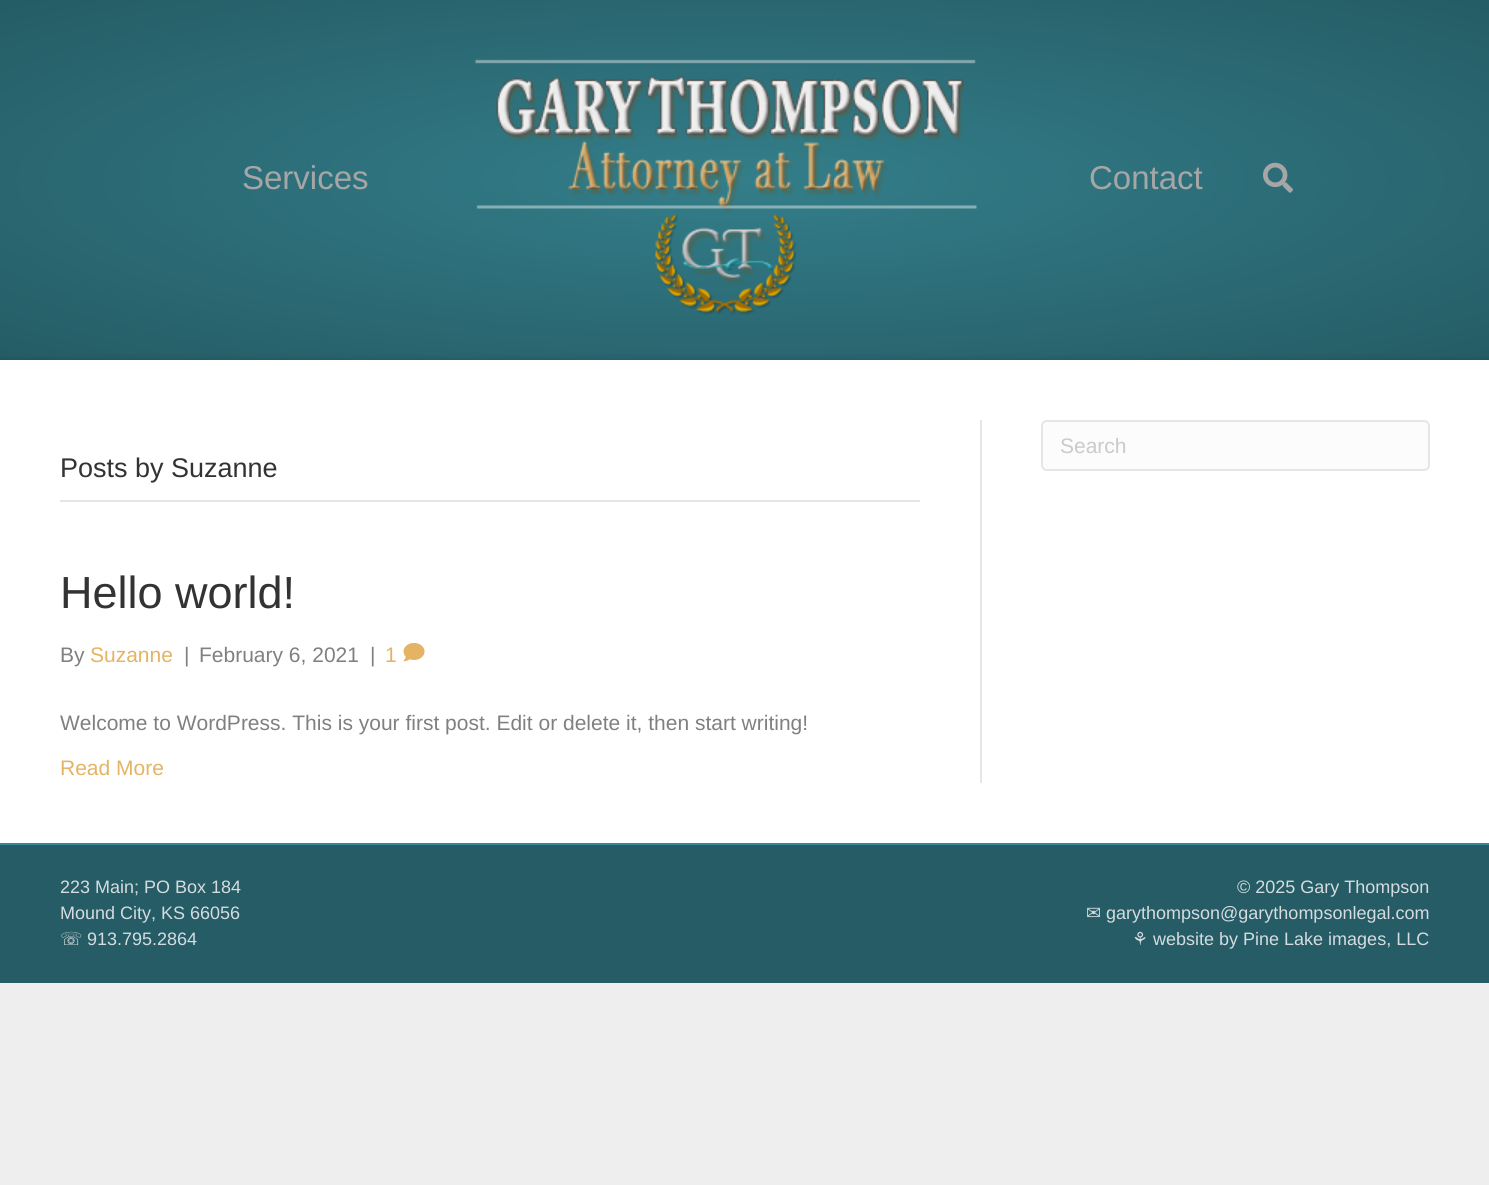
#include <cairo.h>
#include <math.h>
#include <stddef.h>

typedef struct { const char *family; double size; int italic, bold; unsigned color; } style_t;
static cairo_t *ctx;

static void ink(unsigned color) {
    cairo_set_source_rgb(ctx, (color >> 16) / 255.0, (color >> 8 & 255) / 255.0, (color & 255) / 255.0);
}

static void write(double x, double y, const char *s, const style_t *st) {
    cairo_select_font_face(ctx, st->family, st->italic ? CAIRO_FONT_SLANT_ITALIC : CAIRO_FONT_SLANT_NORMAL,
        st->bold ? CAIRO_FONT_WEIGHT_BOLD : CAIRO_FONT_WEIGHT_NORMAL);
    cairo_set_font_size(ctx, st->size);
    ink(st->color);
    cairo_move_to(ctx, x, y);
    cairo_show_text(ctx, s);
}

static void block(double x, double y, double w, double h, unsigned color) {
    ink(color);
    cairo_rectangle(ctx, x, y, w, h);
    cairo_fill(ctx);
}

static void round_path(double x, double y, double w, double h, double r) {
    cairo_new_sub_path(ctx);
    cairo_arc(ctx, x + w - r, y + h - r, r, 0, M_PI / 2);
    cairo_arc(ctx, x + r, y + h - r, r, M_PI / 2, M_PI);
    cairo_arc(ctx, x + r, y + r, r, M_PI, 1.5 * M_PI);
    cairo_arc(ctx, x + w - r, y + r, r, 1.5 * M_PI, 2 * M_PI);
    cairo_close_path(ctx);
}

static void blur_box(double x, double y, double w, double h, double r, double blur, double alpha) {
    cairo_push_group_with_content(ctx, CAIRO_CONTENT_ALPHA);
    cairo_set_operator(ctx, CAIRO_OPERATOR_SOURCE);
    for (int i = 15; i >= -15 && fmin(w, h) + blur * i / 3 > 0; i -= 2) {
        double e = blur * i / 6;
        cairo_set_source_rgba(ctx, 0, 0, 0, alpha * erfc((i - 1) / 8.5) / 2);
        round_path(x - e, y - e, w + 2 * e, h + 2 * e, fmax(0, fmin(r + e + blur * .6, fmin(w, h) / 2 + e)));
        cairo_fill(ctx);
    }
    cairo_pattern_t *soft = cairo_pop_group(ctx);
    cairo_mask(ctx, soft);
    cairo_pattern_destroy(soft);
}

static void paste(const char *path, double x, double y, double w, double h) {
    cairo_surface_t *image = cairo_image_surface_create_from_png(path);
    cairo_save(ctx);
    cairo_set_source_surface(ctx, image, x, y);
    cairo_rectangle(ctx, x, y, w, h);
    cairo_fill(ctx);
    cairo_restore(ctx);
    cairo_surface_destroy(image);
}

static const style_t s1 = {"Liberation Sans", 33, 0, 0, 0xa6a6a6};
static const style_t s2 = {"Liberation Sans", 21, 0, 0, 0xcacaca};
static const style_t s3 = {"Liberation Sans", 27, 0, 0, 0x333333};
static const style_t s4 = {"Liberation Sans", 45, 0, 0, 0x333333};
static const style_t s5 = {"Liberation Sans", 21, 0, 0, 0x808080};
static const style_t s6 = {"Liberation Sans", 21, 0, 0, 0xe4b363};
static const style_t s7 = {"Liberation Sans", 18, 0, 0, 0xd5dce0};
static const style_t s8 = {"DejaVu Sans", 18, 0, 0, 0xd5dce0};

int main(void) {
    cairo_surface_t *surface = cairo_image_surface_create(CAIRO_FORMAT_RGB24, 1489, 1185);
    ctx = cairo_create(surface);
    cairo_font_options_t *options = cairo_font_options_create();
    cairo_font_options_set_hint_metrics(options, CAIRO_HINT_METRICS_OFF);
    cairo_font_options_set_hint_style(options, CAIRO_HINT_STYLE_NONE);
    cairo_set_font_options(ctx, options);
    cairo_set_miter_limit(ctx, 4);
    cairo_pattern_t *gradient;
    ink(0xeeeeee);
    cairo_paint(ctx);
    gradient = cairo_pattern_create_radial(0, 0, 0, 0, 0, 1);
    cairo_pattern_set_matrix(gradient, &(cairo_matrix_t){1.0 / 1053, 0, 0, 1.0 / 255, -1.0 * 745 / 1053, -1.0 * 180 / 255});
    cairo_pattern_add_color_stop_rgba(gradient, 0, 0.2, 0.494, 0.541, 1);
    cairo_pattern_add_color_stop_rgba(gradient, 1, 0.145, 0.361, 0.396, 1);
    cairo_set_source(ctx, gradient);
    cairo_pattern_destroy(gradient);
    cairo_rectangle(ctx, 0, 0, 1489, 360);
    cairo_fill(ctx);
    write(242, 189, "Services", &s1);
    paste("pic1.png", 475, 59, 502, 256);
    write(1089, 189, "Contact", &s1);
    paste("pic2.png", 1263, 162, 30, 31);
    ink(0x000000);
    blur_box(0, 360, 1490, 483, 0, 4, 0.15);
    block(0, 360, 1489, 483, 0xffffff);
    ink(0xfcfcfc);
    round_path(1042, 421, 387, 49, 5);
    cairo_fill_preserve(ctx);
    ink(0xe6e6e6);
    cairo_stroke(ctx);
    write(1060, 453, "Search", &s2);
    block(980, 420, 2, 363, 0xe6e6e6);
    block(60, 500, 860, 2, 0xe6e6e6);
    write(60, 477, "Posts by Suzanne", &s3);
    write(60, 608, "Hello world!", &s4);
    write(60, 662, "By", &s5);
    write(90, 662, "Suzanne", &s6);
    write(184, 662, "|", &s5);
    write(199, 662, "February 6, 2021", &s5);
    write(370, 662, "|", &s5);
    write(385, 662, "1", &s6);
    paste("pic3.png", 403, 642, 22, 20);
    write(60, 730, "Welcome to WordPress. This is your first post. Edit or delete it, then start writing!", &s5);
    write(60, 775, "Read More", &s6);
    block(0, 845, 1489, 138, 0x255c65);
    block(0, 843, 1489, 2, 0x378896);
    write(60, 893, "223 Main; PO Box 184", &s7);
    write(60, 919, "Mound City, KS 66056", &s7);
    write(60, 945, "☏", &s8);
    write(87, 945, "913.795.2864", &s7);
    write(1237, 893, "© 2025 Gary Thompson", &s7);
    write(1086, 919, "✉", &s8);
    write(1106, 919, "garythompson@garythompsonlegal.com", &s7);
    write(1132, 945, "⚘", &s8);
    write(1153, 945, "website by Pine Lake images, LLC", &s7);
    cairo_surface_write_to_png(surface, "screenshot.png");
    cairo_font_options_destroy(options);
    cairo_destroy(ctx);
    cairo_surface_destroy(surface);
    return 0;
}
